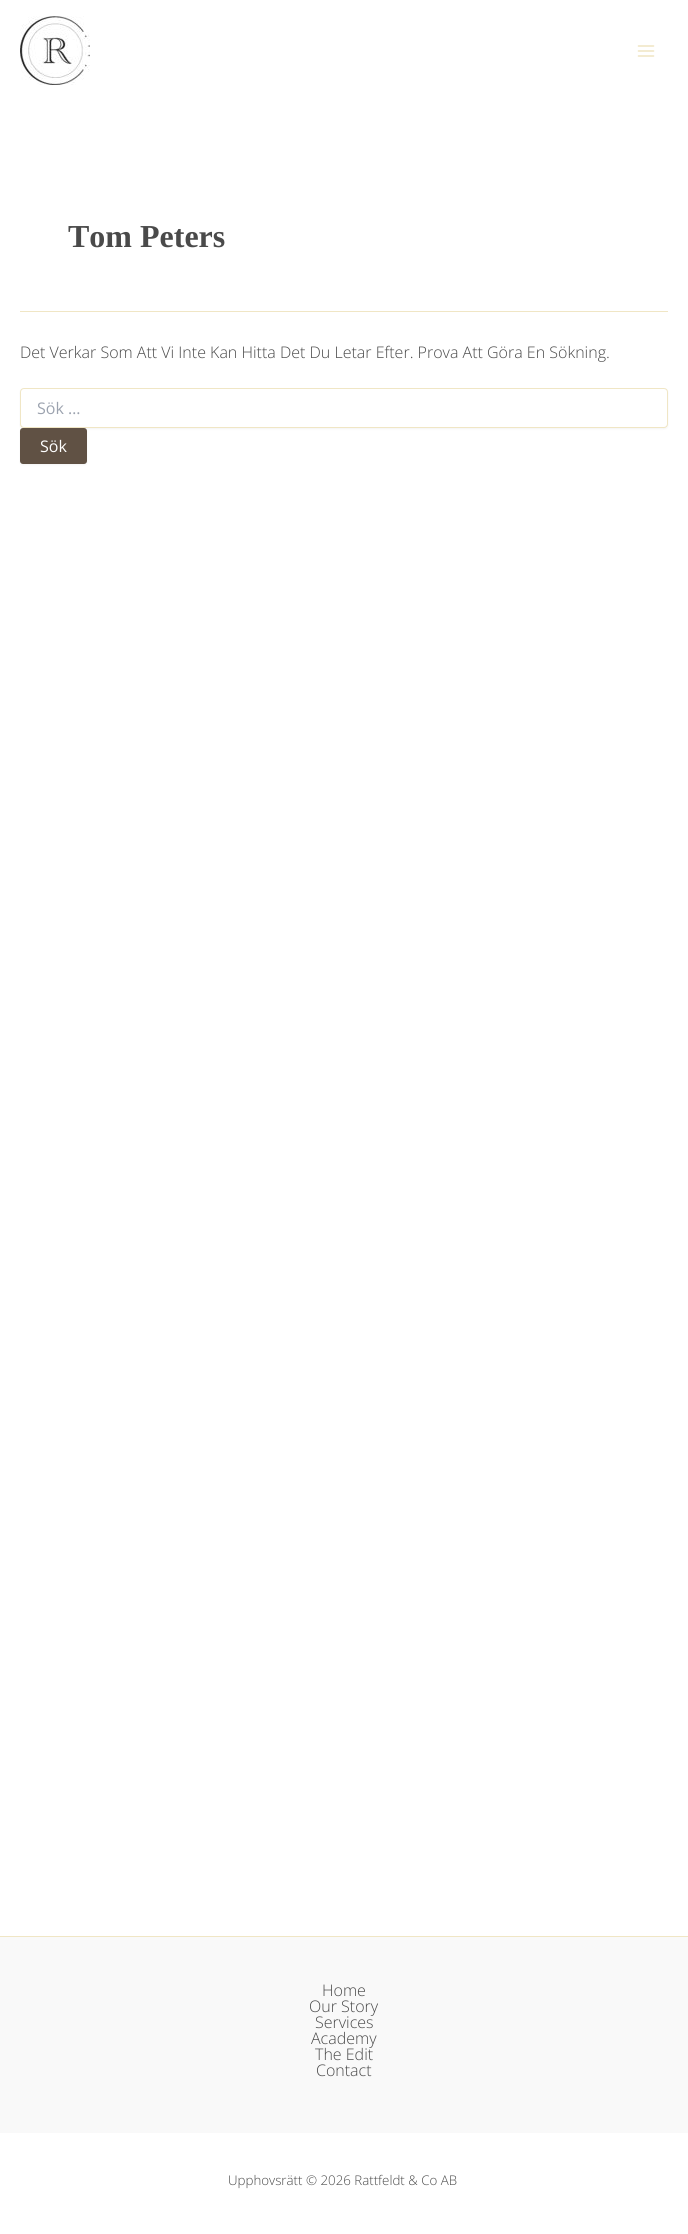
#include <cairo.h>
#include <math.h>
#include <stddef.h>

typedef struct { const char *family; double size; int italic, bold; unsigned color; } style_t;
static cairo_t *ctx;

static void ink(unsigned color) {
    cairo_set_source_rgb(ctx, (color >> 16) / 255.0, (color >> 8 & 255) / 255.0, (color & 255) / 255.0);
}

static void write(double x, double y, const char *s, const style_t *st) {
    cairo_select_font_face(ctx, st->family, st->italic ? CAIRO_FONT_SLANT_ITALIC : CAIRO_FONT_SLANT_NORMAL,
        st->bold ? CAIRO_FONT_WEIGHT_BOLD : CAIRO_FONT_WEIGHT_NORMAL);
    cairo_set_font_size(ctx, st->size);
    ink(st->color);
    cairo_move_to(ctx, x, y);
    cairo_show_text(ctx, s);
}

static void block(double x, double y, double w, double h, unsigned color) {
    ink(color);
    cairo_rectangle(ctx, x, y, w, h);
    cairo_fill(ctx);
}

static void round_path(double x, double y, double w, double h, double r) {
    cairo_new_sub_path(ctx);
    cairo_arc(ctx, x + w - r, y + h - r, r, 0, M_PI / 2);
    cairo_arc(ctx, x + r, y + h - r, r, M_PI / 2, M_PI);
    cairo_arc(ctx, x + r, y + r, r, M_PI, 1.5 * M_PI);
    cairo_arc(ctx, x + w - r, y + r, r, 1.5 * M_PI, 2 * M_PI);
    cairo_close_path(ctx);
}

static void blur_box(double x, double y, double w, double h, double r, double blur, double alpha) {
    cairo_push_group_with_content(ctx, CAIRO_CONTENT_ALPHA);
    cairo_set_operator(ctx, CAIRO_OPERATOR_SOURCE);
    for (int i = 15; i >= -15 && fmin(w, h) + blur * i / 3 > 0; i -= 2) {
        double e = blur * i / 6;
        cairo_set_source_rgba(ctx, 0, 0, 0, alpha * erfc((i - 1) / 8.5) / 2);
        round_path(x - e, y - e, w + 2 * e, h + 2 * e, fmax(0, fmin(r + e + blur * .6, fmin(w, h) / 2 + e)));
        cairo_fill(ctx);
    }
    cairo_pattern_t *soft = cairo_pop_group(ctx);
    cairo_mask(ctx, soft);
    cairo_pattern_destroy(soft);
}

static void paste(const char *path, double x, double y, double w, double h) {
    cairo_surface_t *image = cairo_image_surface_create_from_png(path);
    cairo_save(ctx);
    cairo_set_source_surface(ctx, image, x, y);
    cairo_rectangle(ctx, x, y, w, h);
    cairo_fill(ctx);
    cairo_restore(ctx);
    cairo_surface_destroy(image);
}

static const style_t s1 = {"Liberation Serif", 32, 0, 1, 0x4a4a4a};
static const style_t s2 = {"Open Sans Light", 16, 0, 0, 0x4a4a4a};
static const style_t s3 = {"Open Sans", 16, 0, 0, 0x9ca3af};
static const style_t s4 = {"Open Sans", 16, 0, 0, 0xffffff};
static const style_t s5 = {"Open Sans Light", 13.3, 0, 0, 0x4a4a4a};

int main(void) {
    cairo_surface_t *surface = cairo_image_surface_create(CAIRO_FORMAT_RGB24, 688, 2234);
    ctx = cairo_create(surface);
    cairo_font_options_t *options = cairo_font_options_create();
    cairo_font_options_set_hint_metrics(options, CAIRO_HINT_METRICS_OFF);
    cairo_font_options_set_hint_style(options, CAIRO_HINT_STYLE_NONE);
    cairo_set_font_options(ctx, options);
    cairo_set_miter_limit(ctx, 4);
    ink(0xffffff);
    cairo_paint(ctx);
    paste("pic1.png", 20, 16, 70, 69);
    paste("pic2.png", 637, 45, 18, 12);
    block(20, 311, 648, 1, 0xf0e6c5);
    write(68, 247, "Tom Peters", &s1);
    write(20, 358, "Det Verkar Som Att Vi Inte Kan Hitta Det Du Letar Efter. Prova Att Göra En Sökning.", &s2);
    ink(0x000000);
    blur_box(20, 389, 648, 40, 4, 1, 0.05);
    ink(0xffffff);
    round_path(20.5, 388.5, 647, 39, 3.5);
    cairo_fill_preserve(ctx);
    ink(0xf0e6c5);
    cairo_set_line_width(ctx, 1);
    cairo_stroke(ctx);
    write(37, 414, "Sök …", &s3);
    ink(0x000000);
    blur_box(20, 429, 67, 36, 3, 1, 0.05);
    ink(0x605144);
    round_path(20, 428, 67, 36, 3);
    cairo_fill(ctx);
    write(40, 452, "Sök", &s4);
    block(0, 1937, 688, 196, 0xf9f9f9);
    block(0, 1936, 688, 1, 0xf0e6c5);
    write(322, 1996, "Home", &s2);
    write(309, 2012, "Our Story", &s2);
    write(315, 2028, "Services", &s2);
    write(311, 2044, "Academy", &s2);
    write(315, 2060, "The Edit", &s2);
    write(316, 2076, "Contact", &s2);
    write(228, 2185, "Upphovsrätt © 2026 Rattfeldt & Co AB", &s5);
    cairo_surface_write_to_png(surface, "screenshot.png");
    cairo_font_options_destroy(options);
    cairo_destroy(ctx);
    cairo_surface_destroy(surface);
    return 0;
}
